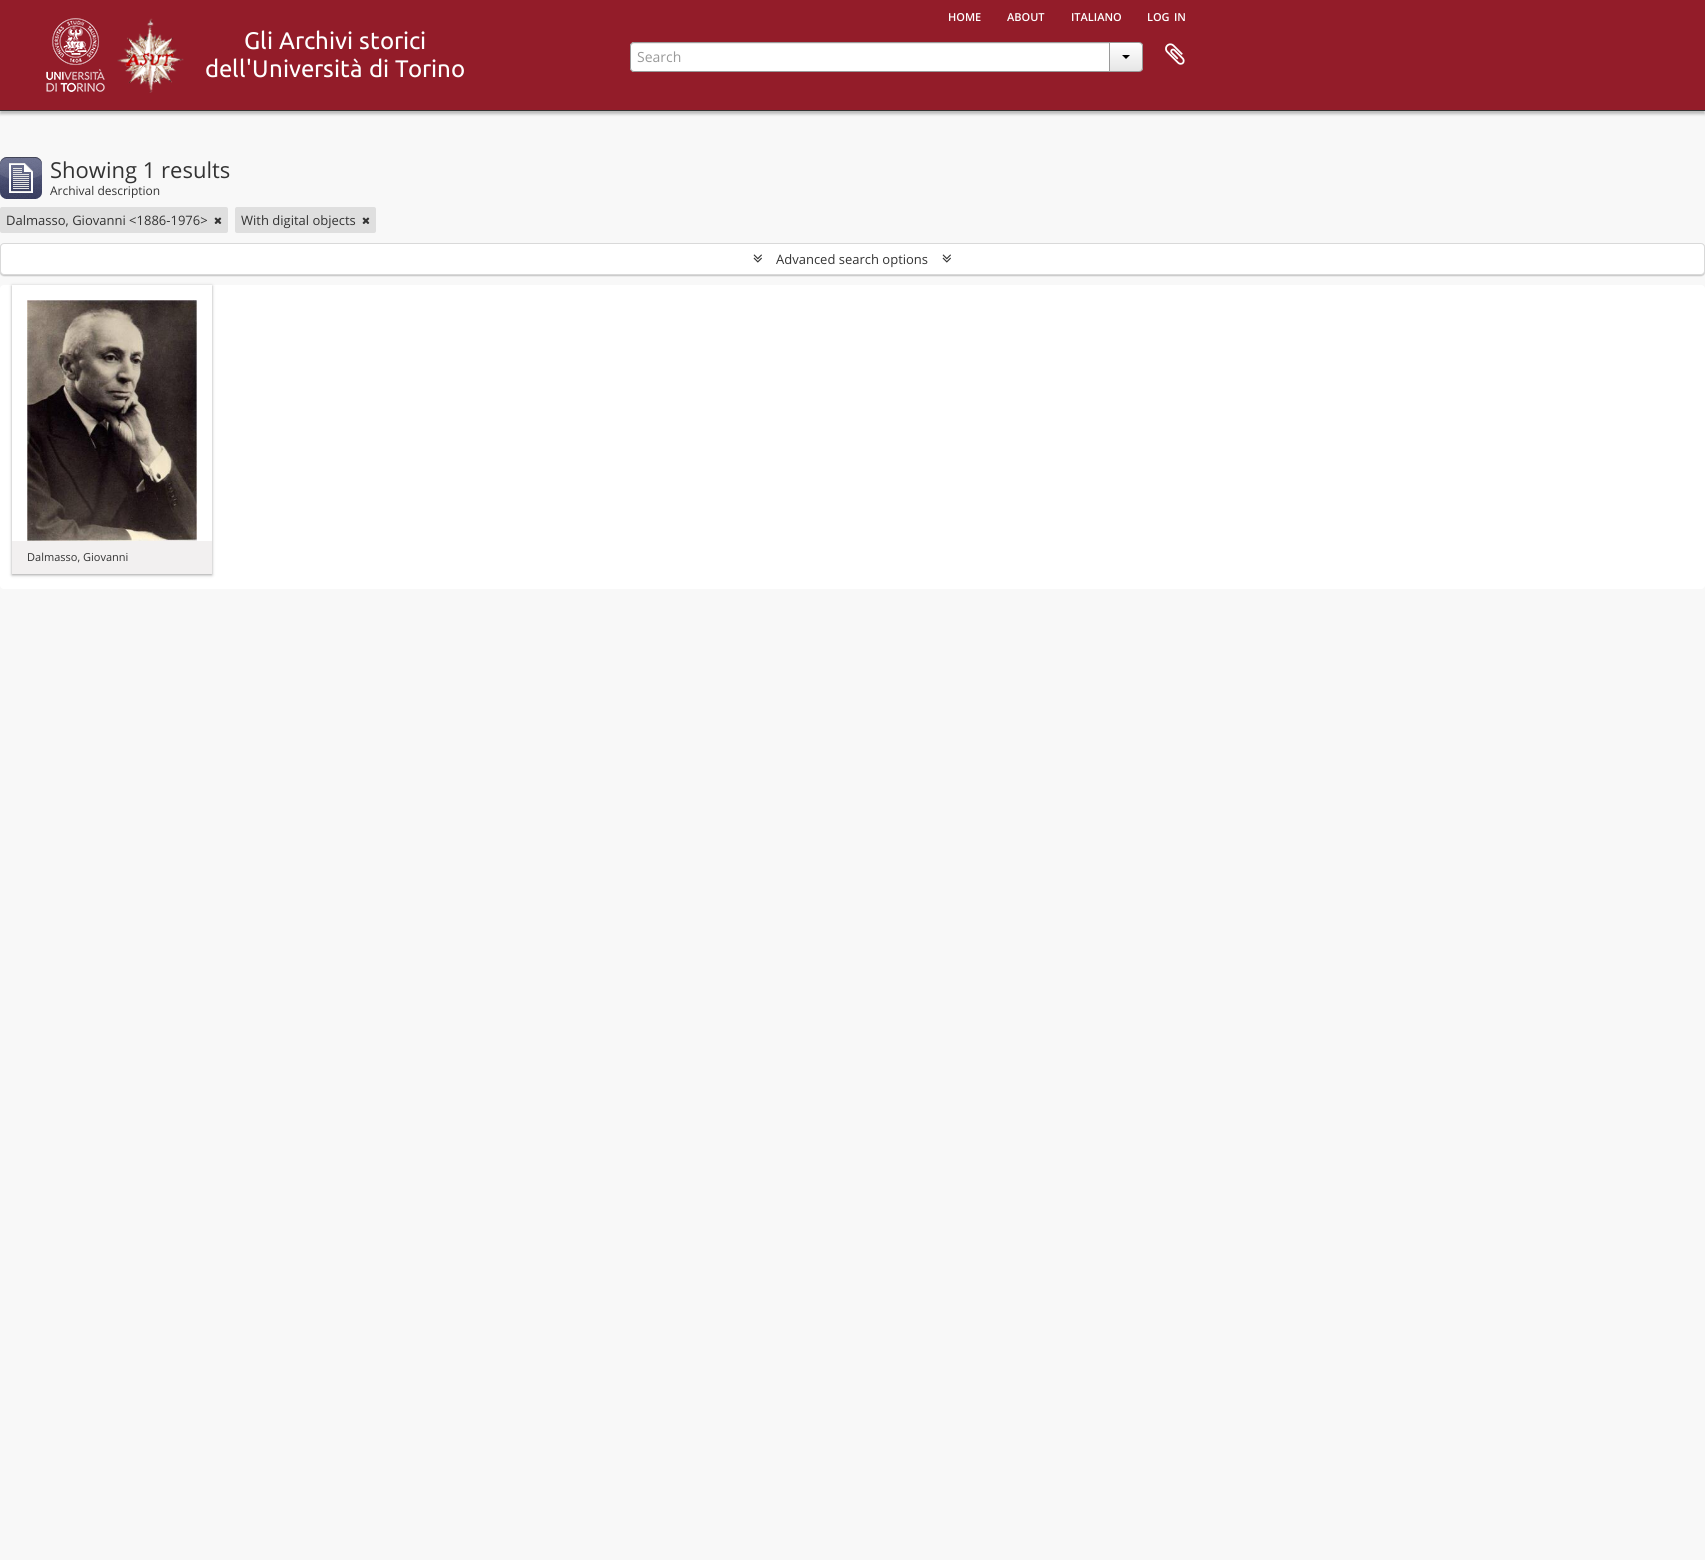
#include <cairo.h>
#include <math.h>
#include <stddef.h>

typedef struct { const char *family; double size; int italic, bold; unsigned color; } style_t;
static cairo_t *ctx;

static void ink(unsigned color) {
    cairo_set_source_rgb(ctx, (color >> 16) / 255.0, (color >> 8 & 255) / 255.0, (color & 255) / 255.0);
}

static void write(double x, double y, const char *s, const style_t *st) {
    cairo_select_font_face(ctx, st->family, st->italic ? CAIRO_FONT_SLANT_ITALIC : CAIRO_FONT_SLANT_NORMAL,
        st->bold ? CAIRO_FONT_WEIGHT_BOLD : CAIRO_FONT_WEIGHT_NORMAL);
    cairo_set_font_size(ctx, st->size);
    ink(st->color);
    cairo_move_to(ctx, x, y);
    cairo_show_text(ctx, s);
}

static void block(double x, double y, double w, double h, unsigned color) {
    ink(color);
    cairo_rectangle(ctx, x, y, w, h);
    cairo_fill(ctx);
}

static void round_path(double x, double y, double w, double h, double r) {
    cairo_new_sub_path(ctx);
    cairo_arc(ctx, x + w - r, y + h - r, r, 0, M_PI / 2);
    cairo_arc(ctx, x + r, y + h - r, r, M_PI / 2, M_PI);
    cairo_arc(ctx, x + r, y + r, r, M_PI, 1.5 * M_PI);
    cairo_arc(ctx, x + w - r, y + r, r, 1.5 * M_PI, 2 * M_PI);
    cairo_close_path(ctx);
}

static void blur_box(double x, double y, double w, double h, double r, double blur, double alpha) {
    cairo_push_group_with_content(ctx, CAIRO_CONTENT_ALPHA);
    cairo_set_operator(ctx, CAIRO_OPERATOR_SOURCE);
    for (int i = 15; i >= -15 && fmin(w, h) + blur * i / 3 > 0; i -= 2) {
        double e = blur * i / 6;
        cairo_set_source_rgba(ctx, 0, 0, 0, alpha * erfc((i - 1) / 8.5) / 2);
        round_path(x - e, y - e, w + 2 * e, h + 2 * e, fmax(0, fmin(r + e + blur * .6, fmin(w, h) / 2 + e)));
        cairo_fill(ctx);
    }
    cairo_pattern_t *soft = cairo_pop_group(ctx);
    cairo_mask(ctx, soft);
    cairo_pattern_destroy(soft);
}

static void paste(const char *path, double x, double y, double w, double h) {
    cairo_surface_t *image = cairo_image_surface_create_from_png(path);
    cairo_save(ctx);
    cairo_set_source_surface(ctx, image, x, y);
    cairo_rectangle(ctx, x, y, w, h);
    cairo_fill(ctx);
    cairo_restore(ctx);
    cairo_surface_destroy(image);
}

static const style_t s1 = {"Open Sans SemiBold", 11, 0, 0, 0xffffff};
static const style_t s2 = {"Open Sans", 14, 0, 0, 0x999999};
static const style_t s3 = {"Open Sans", 22, 0, 0, 0x333333};
static const style_t s4 = {"Open Sans", 12, 0, 0, 0x333333};
static const style_t s5 = {"Open Sans", 13, 0, 0, 0x333333};
static const style_t s6 = {"Open Sans", 11, 0, 0, 0x333333};

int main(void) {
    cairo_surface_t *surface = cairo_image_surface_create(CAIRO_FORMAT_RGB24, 1705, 1560);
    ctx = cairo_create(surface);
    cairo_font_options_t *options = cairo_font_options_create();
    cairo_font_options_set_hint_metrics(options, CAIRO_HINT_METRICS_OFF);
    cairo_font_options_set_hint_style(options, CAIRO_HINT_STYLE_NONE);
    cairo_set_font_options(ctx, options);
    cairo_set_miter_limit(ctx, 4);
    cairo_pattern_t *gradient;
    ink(0xf8f8f8);
    cairo_paint(ctx);
    ink(0x000000);
    blur_box(0, 3, 1705, 111, 0, 1.5, 0.25);
    block(0, 0, 1705, 110, 0x931c29);
    block(0, 110, 1705, 1, 0x333333);
    write(948, 21, "HOME", &s1);
    write(1007, 21, "ABOUT", &s1);
    write(1071, 21, "ITALIANO", &s1);
    write(1147, 21, "LOG", &s1);
    write(1174, 21, "IN", &s1);
    paste("pic1.png", 46, 18, 59, 74);
    paste("pic2.png", 117, 18, 67, 75);
    paste("pic3.png", 206, 30, 258, 48);
    cairo_new_path(ctx);
    cairo_move_to(ctx, 634, 42);
    cairo_line_to(ctx, 1110, 42);
    cairo_line_to(ctx, 1110, 72);
    cairo_line_to(ctx, 634, 72);
    cairo_curve_to(ctx, 632, 72, 630, 70, 630, 68);
    cairo_line_to(ctx, 630, 46);
    cairo_curve_to(ctx, 630, 44, 632, 42, 634, 42);
    cairo_close_path(ctx);
    cairo_fill(ctx);
    ink(0xececec);
    cairo_new_path(ctx);
    cairo_move_to(ctx, 634, 44);
    cairo_line_to(ctx, 1109, 44);
    cairo_line_to(ctx, 1109, 43);
    cairo_line_to(ctx, 634, 43);
    cairo_curve_to(ctx, 632, 43, 631, 45, 631, 47);
    cairo_curve_to(ctx, 631, 45, 632, 44, 634, 44);
    cairo_close_path(ctx);
    cairo_fill(ctx);
    cairo_new_path(ctx);
    cairo_move_to(ctx, 634, 42.5);
    cairo_line_to(ctx, 1109.5, 42.5);
    cairo_line_to(ctx, 1109.5, 71.5);
    cairo_line_to(ctx, 634, 71.5);
    cairo_curve_to(ctx, 632, 71.5, 630.5, 70, 630.5, 68);
    cairo_line_to(ctx, 630.5, 46);
    cairo_curve_to(ctx, 630.5, 44, 632, 42.5, 634, 42.5);
    cairo_close_path(ctx);
    ink(0x9a9a9a);
    cairo_set_line_width(ctx, 1);
    cairo_stroke(ctx);
    write(637, 62, "Search", &s2);
    cairo_save(ctx);
    cairo_new_path(ctx);
    cairo_move_to(ctx, 1109, 42);
    cairo_line_to(ctx, 1139, 42);
    cairo_curve_to(ctx, 1141, 42, 1143, 44, 1143, 46);
    cairo_line_to(ctx, 1143, 68);
    cairo_curve_to(ctx, 1143, 70, 1141, 72, 1139, 72);
    cairo_line_to(ctx, 1109, 72);
    cairo_close_path(ctx);
    cairo_clip(ctx);
    gradient = cairo_pattern_create_linear(1126, 43, 1126, 71);
    cairo_pattern_add_color_stop_rgba(gradient, 0, 1, 1, 1, 1);
    cairo_pattern_add_color_stop_rgba(gradient, 1, 0.902, 0.902, 0.902, 1);
    cairo_set_source(ctx, gradient);
    cairo_pattern_destroy(gradient);
    cairo_rectangle(ctx, 1110, 43, 33, 28);
    cairo_fill(ctx);
    cairo_restore(ctx);
    cairo_new_path(ctx);
    cairo_move_to(ctx, 1109.5, 42.5);
    cairo_line_to(ctx, 1139, 42.5);
    cairo_curve_to(ctx, 1141, 42.5, 1142.5, 44, 1142.5, 46);
    cairo_line_to(ctx, 1142.5, 68);
    cairo_curve_to(ctx, 1142.5, 70, 1141, 71.5, 1139, 71.5);
    cairo_line_to(ctx, 1109.5, 71.5);
    cairo_close_path(ctx);
    ink(0x9a9a9a);
    cairo_stroke(ctx);
    ink(0x000000);
    cairo_new_path(ctx);
    cairo_move_to(ctx, 1122, 55);
    cairo_line_to(ctx, 1130, 55);
    cairo_line_to(ctx, 1126, 59);
    cairo_close_path(ctx);
    cairo_fill(ctx);
    paste("pic4.png", 1165, 43, 20, 22);
    paste("pic5.png", 0, 157, 42, 42);
    write(50, 178, "Showing 1 results", &s3);
    write(50, 195, "Archival description", &s4);
    ink(0xdfdfdf);
    round_path(0, 207, 228, 26, 2);
    cairo_fill(ctx);
    write(6, 225, "Dalmasso, Giovanni <1886-1976>", &s5);
    paste("pic6.png", 214, 217, 8, 7);
    ink(0xdfdfdf);
    round_path(235, 207, 141, 26, 2);
    cairo_fill(ctx);
    write(241, 225, "With digital objects", &s5);
    paste("pic6.png", 362, 217, 8, 7);
    ink(0x000000);
    blur_box(0, 244, 1705, 32, 4, 0.5, 0.2);
    ink(0xffffff);
    round_path(0.5, 243.5, 1704, 31, 3.5);
    cairo_fill_preserve(ctx);
    ink(0xd9d9d9);
    cairo_stroke(ctx);
    paste("pic7.png", 753, 254, 9, 9);
    write(776, 264, "Advanced search options", &s5);
    paste("pic7.png", 942, 254, 9, 9);
    ink(0xffffff);
    round_path(0, 285, 1705, 304, 4);
    cairo_fill(ctx);
    cairo_save(ctx);
    cairo_set_fill_rule(ctx, CAIRO_FILL_RULE_EVEN_ODD);
    cairo_new_path(ctx);
    cairo_move_to(ctx, 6, 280);
    cairo_line_to(ctx, 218, 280);
    cairo_line_to(ctx, 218, 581);
    cairo_line_to(ctx, 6, 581);
    cairo_close_path(ctx);
    cairo_move_to(ctx, 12, 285);
    cairo_line_to(ctx, 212, 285);
    cairo_line_to(ctx, 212, 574);
    cairo_line_to(ctx, 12, 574);
    cairo_close_path(ctx);
    cairo_clip(ctx);
    ink(0x191919);
    blur_box(12, 286, 200, 289, 0, 1.5, 0.4);
    cairo_restore(ctx);
    paste("pic8.png", 27, 300, 170, 241);
    block(12, 541, 200, 33, 0xf2f0f0);
    write(27, 561, "Dalmasso, Giovanni", &s6);
    cairo_surface_write_to_png(surface, "screenshot.png");
    cairo_font_options_destroy(options);
    cairo_destroy(ctx);
    cairo_surface_destroy(surface);
    return 0;
}
